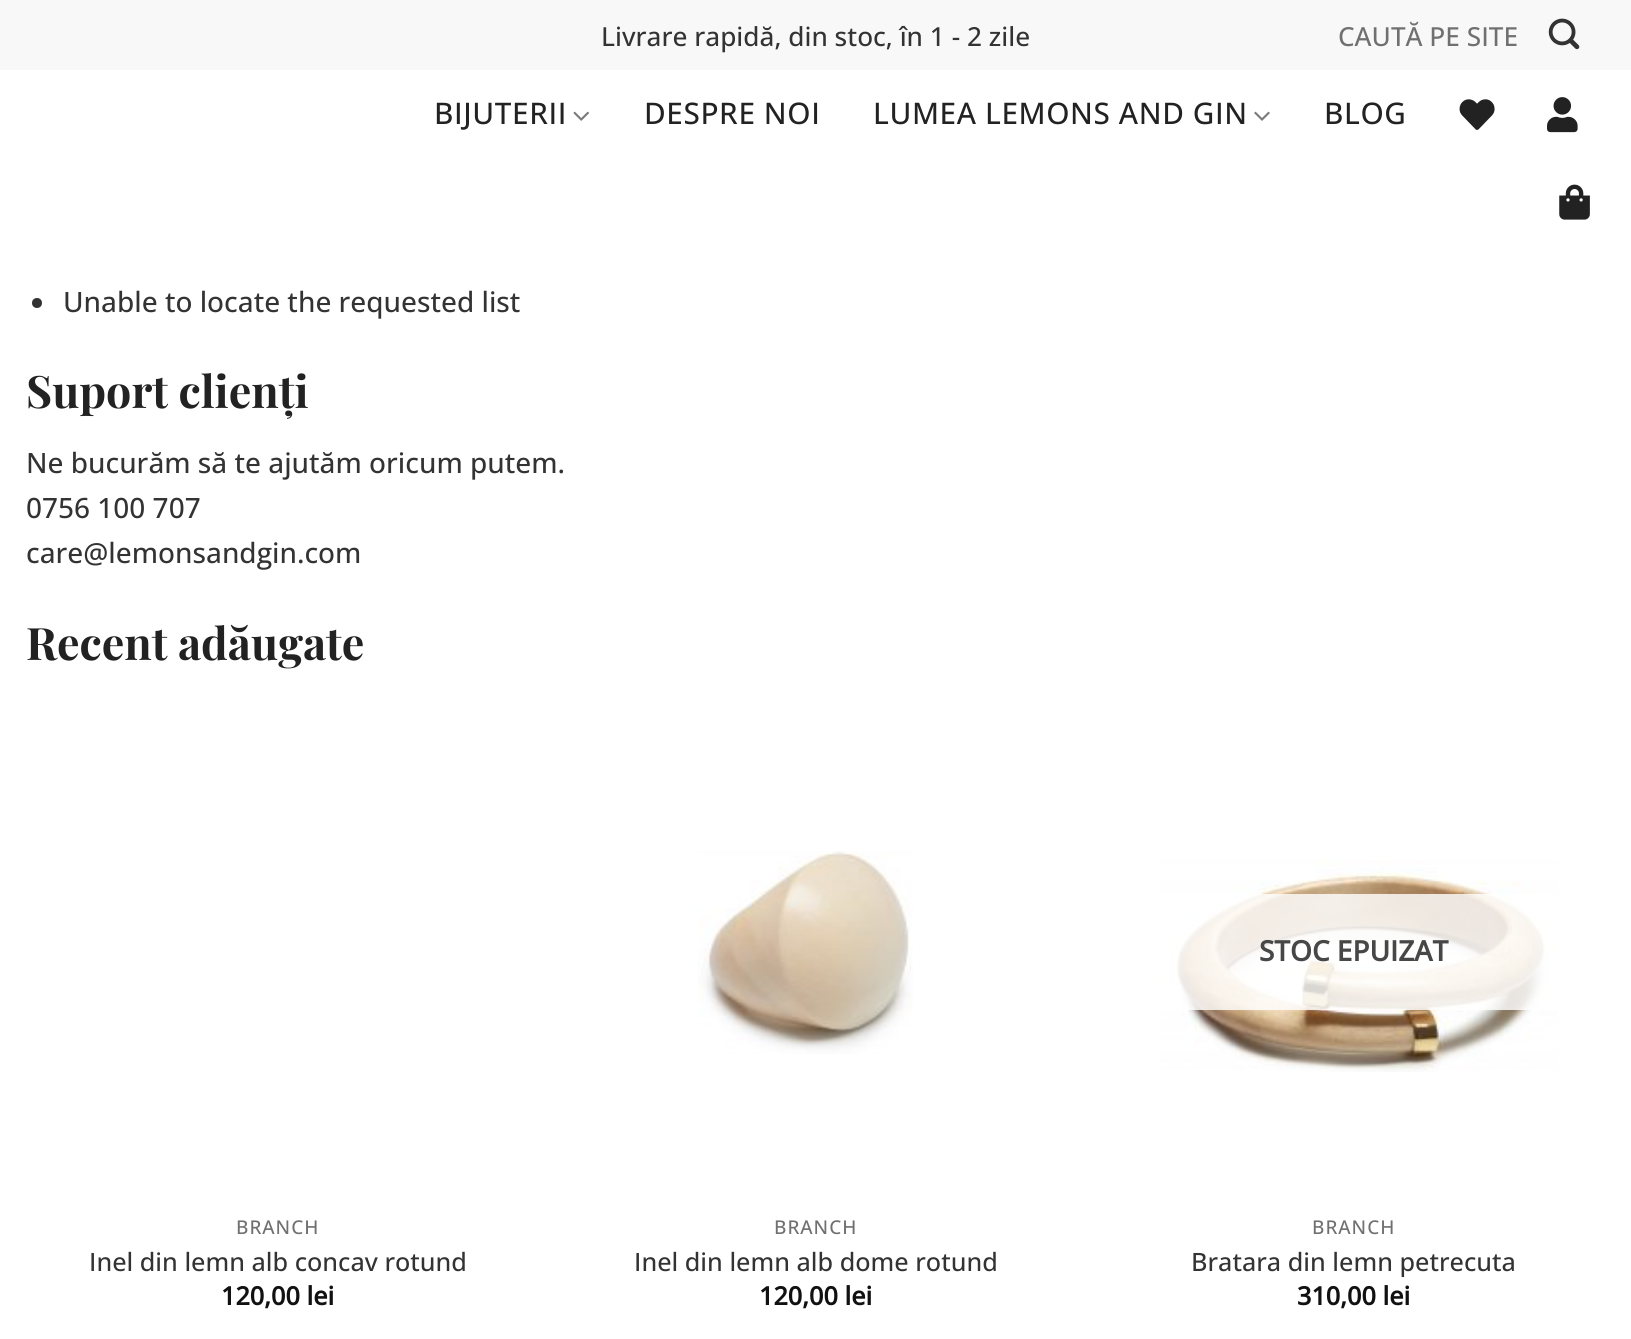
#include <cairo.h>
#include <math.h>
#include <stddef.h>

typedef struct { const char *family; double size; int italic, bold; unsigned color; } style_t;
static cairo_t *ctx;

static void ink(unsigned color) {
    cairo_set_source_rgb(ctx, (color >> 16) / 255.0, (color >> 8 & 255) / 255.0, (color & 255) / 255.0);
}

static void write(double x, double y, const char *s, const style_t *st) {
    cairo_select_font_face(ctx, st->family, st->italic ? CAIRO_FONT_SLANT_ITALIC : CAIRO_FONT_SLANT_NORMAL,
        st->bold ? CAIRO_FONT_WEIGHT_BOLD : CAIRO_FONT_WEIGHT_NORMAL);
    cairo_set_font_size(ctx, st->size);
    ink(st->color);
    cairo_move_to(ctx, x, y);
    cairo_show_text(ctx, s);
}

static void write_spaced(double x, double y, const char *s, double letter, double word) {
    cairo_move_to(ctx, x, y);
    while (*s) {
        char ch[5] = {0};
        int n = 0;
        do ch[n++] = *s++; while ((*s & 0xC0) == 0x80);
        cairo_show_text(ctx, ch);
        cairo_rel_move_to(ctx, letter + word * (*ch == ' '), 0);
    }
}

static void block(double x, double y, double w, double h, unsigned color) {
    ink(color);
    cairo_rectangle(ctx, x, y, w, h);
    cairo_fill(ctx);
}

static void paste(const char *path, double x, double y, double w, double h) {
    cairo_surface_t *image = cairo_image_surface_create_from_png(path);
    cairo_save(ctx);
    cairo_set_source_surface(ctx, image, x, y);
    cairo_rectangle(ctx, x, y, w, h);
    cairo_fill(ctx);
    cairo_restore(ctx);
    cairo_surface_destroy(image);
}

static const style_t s1 = {"Open Sans Medium", 26.25, 0, 0, 0x333333};
static const style_t s2 = {"Open Sans Medium", 26.25, 0, 0, 0x707070};
static const style_t s3 = {"Open Sans Medium", 28, 0, 0, 0x333333};
static const style_t s4 = {"Playfair Display", 44.75, 0, 1, 0x222222};
static const style_t s5 = {"Open Sans Medium", 25.25, 0, 0, 0x333333};
static const style_t s6 = {"Open Sans", 25.25, 0, 1, 0x111111};
static const style_t s7 = {"Open Sans", 28, 0, 1, 0x474747};

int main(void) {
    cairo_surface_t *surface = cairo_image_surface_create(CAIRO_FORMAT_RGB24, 1631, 1339);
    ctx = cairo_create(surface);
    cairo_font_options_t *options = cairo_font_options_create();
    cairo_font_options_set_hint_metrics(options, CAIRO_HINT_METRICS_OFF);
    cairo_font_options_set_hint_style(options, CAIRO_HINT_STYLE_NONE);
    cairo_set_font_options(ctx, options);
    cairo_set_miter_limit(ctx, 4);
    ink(0xffffff);
    cairo_paint(ctx);
    block(0, 0, 1631, 70, 0xf8f8f8);
    write(601, 46, "Livrare rapidă, din stoc, în 1 - 2 zile", &s1);
    write(1338, 46, "CAUTĂ PE SITE", &s2);
    paste("pic1.png", 1548, 18, 32, 32);
    cairo_set_font_size(ctx, 29.75);
    ink(0x222222);
    write_spaced(434, 124, "BIJUTERII", 0.6, 0);
    paste("pic2.png", 573, 111, 16, 10);
    write_spaced(644, 124, "DESPRE NOI", 0.6, 0);
    write_spaced(873, 124, "LUMEA LEMONS AND GIN", 0.6, 0);
    paste("pic3.png", 1254, 111, 16, 10);
    write_spaced(1324, 124, "BLOG", 0.6, 0);
    paste("pic4.png", 1459, 99, 36, 31);
    paste("pic5.png", 1547, 97, 31, 36);
    paste("pic6.png", 1559, 184, 31, 36);
    ink(0x333333);
    cairo_arc(ctx, 37, 303, 5, 0, 2 * M_PI);
    cairo_fill(ctx);
    write(63, 312, "Unable to locate the requested list", &s3);
    write(26, 408, "Suport clienți", &s4);
    write(26, 473, "Ne bucurăm să te ajutăm oricum putem.", &s3);
    write(26, 518, "0756 100 707", &s3);
    write(26, 563, "care@lemonsandgin.com", &s3);
    write(26, 660, "Recent adăugate", &s4);
    cairo_select_font_face(ctx, "Open Sans Medium", CAIRO_FONT_SLANT_NORMAL, CAIRO_FONT_WEIGHT_NORMAL);
    cairo_set_font_size(ctx, 19);
    ink(0x707070);
    write_spaced(236, 1234, "BRANCH", 1, 0);
    write(89, 1271, "Inel din lemn alb concav rotund", &s5);
    write(221, 1305, "120,00 lei", &s6);
    paste("pic7.png", 698, 851, 215, 203);
    cairo_select_font_face(ctx, "Open Sans Medium", CAIRO_FONT_SLANT_NORMAL, CAIRO_FONT_WEIGHT_NORMAL);
    cairo_set_font_size(ctx, 19);
    ink(0x707070);
    write_spaced(774, 1234, "BRANCH", 1, 0);
    write(634, 1271, "Inel din lemn alb dome rotund", &s5);
    write(759, 1305, "120,00 lei", &s6);
    paste("pic8.png", 1160, 860, 398, 212);
    cairo_set_source_rgba(ctx, 1, 1, 1, 0.81);
    cairo_rectangle(ctx, 1160, 894, 398, 116);
    cairo_fill(ctx);
    write(1259, 961, "STOC EPUIZAT", &s7);
    cairo_select_font_face(ctx, "Open Sans Medium", CAIRO_FONT_SLANT_NORMAL, CAIRO_FONT_WEIGHT_NORMAL);
    cairo_set_font_size(ctx, 19);
    ink(0x707070);
    write_spaced(1312, 1234, "BRANCH", 1, 0);
    write(1191, 1271, "Bratara din lemn petrecuta", &s5);
    write(1297, 1305, "310,00 lei", &s6);
    cairo_surface_write_to_png(surface, "screenshot.png");
    cairo_font_options_destroy(options);
    cairo_destroy(ctx);
    cairo_surface_destroy(surface);
    return 0;
}
